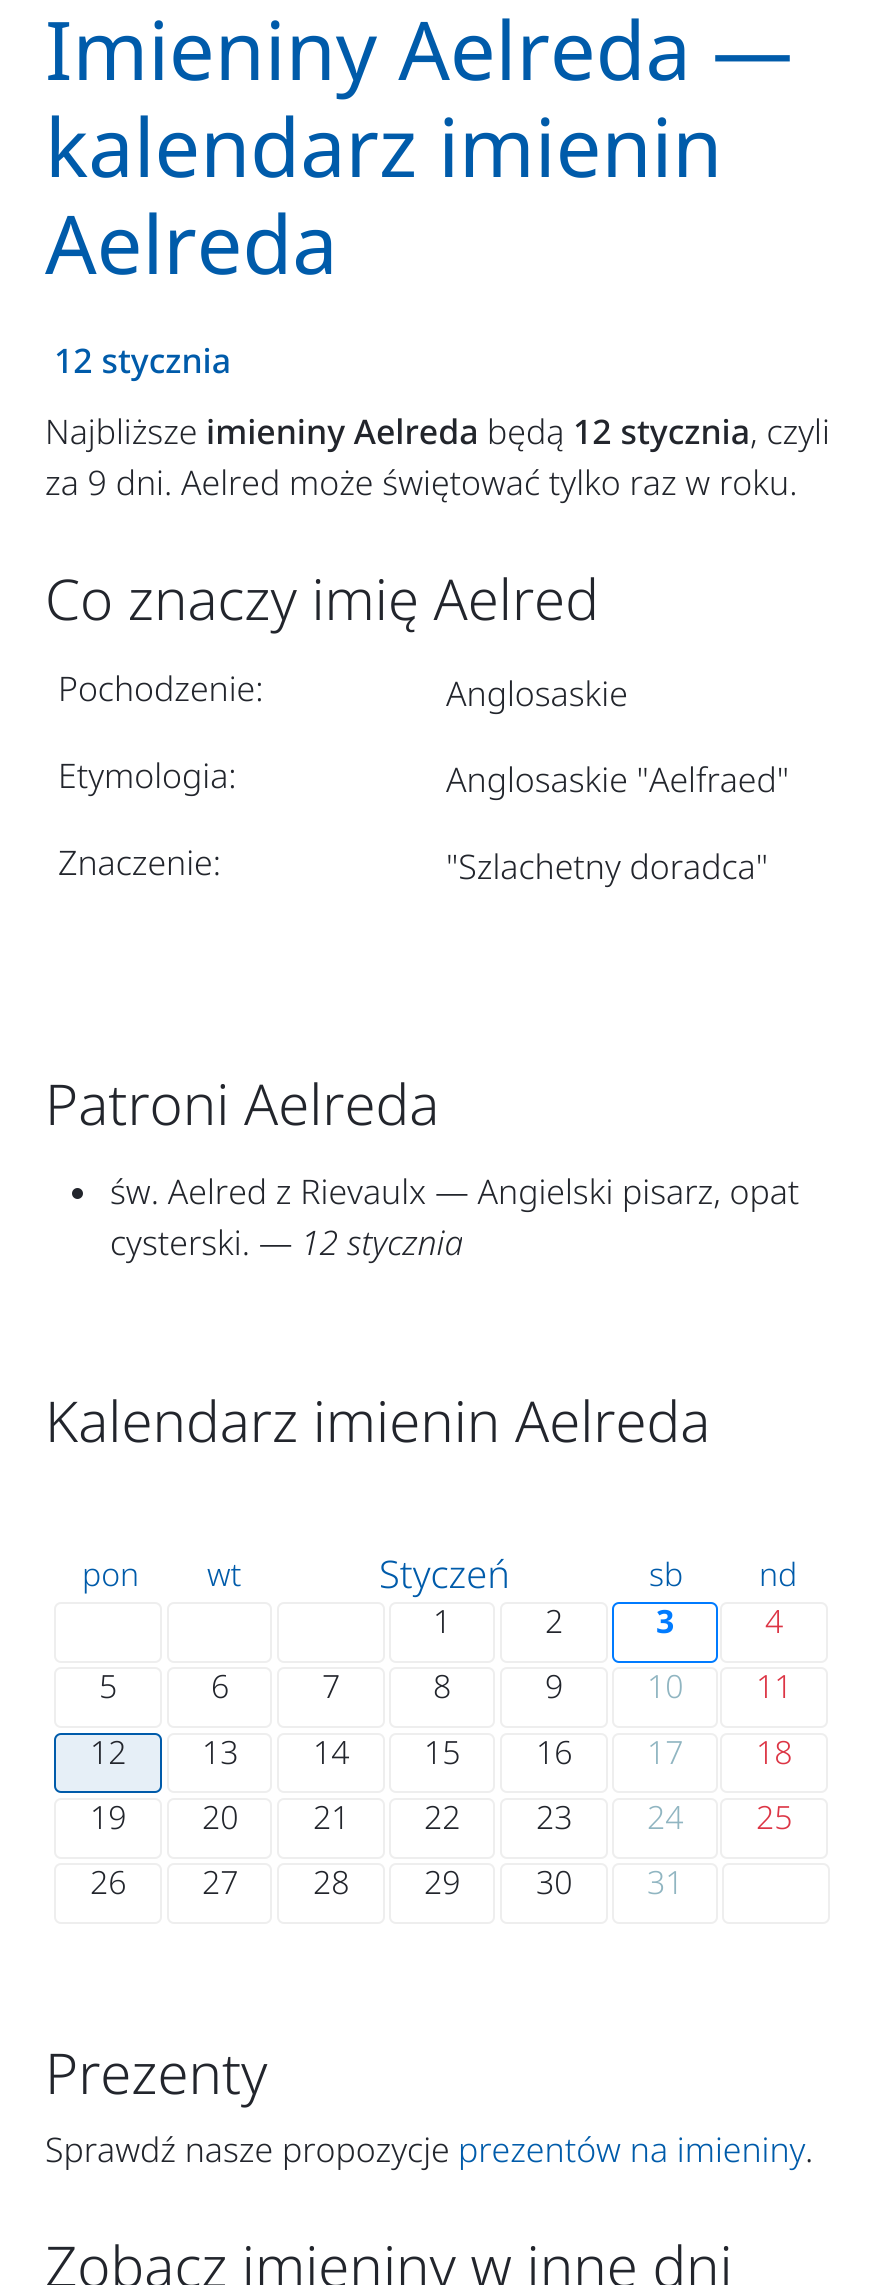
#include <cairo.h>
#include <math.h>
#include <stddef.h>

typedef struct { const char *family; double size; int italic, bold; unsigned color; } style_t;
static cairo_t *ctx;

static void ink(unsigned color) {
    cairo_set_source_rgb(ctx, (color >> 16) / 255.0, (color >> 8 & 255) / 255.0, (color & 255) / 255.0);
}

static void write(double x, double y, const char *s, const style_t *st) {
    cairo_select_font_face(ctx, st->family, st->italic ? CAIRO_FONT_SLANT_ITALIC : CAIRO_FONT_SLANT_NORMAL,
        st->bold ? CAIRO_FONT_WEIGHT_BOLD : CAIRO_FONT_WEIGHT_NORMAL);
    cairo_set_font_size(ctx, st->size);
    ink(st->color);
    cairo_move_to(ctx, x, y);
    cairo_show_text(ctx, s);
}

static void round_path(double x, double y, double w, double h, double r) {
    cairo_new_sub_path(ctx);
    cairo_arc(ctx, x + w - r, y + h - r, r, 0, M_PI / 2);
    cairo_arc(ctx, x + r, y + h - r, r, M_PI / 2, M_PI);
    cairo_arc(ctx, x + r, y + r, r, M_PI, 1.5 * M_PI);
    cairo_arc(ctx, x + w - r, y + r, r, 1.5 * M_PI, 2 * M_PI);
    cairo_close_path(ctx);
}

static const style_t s1 = {"Noto Sans", 81, 0, 0, 0x005baa};
static const style_t s2 = {"Noto Sans Medium", 33.8, 0, 0, 0x005baa};
static const style_t s3 = {"Noto Sans Light", 33.8, 0, 0, 0x22252c};
static const style_t s4 = {"Noto Sans Medium", 33.8, 0, 0, 0x22252c};
static const style_t s5 = {"Noto Sans Light", 56.25, 0, 0, 0x22252c};
static const style_t s6 = {"Noto Sans Light", 33.8, 1, 0, 0x22252c};
static const style_t s7 = {"Noto Sans Light", 32, 0, 0, 0x005baa};
static const style_t s8 = {"Noto Sans Light", 38, 0, 0, 0x005baa};
static const style_t s9 = {"Noto Sans Light", 32, 0, 0, 0x22252c};
static const style_t s10 = {"Noto Sans", 32, 0, 1, 0x007bff};
static const style_t s11 = {"Noto Sans Light", 32, 0, 0, 0xdc3545};
static const style_t s12 = {"Noto Sans Light", 32, 0, 0, 0x90b5c1};
static const style_t s13 = {"Noto Sans Light", 33.8, 0, 0, 0x005baa};

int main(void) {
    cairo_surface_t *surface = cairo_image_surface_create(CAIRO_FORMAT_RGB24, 891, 2285);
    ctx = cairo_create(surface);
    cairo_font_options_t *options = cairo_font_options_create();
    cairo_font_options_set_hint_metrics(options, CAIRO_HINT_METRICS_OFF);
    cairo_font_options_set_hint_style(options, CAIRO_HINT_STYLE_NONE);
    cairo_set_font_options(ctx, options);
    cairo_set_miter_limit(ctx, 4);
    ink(0xffffff);
    cairo_paint(ctx);
    write(45, 80, "Imieniny Aelreda —", &s1);
    write(45, 177, "kalendarz imienin", &s1);
    write(45, 274, "Aelreda", &s1);
    write(54, 373, "12 stycznia", &s2);
    write(45, 444, "Najbliższe", &s3);
    write(206, 444, "imieniny Aelreda", &s4);
    write(487, 444, "będą", &s3);
    write(573, 444, "12 stycznia", &s4);
    write(750, 444, ", czyli", &s3);
    write(45, 495, "za 9 dni. Aelred może świętować tylko raz w roku.", &s3);
    write(45, 620, "Co znaczy imię Aelred", &s5);
    write(58, 701, "Pochodzenie:", &s3);
    write(446, 706, "Anglosaskie", &s3);
    write(58, 788, "Etymologia:", &s3);
    write(446, 792, "Anglosaskie \"Aelfraed\"", &s3);
    write(58, 875, "Znaczenie:", &s3);
    write(446, 879, "\"Szlachetny doradca\"", &s3);
    write(45, 1125, "Patroni Aelreda", &s5);
    cairo_new_path(ctx);
    cairo_arc(ctx, 77.5, 1193.5, 5.5, 0, 2 * M_PI);
    cairo_fill(ctx);
    write(110, 1204, "św. Aelred z Rievaulx — Angielski pisarz, opat", &s3);
    write(110, 1255, "cysterski. —", &s3);
    write(301, 1255, "12 stycznia", &s6);
    write(45, 1442, "Kalendarz imienin Aelreda", &s5);
    write(82, 1586, "pon", &s7);
    write(207, 1586, "wt", &s7);
    write(379, 1588, "Styczeń", &s8);
    write(649, 1586, "sb", &s7);
    write(759, 1586, "nd", &s7);
    round_path(55, 1603, 106, 59, 6);
    ink(0xeeeeee);
    cairo_stroke(ctx);
    round_path(168, 1603, 103, 59, 6);
    cairo_stroke(ctx);
    round_path(278, 1603, 106, 59, 6);
    cairo_stroke(ctx);
    round_path(390, 1603, 104, 59, 6);
    cairo_stroke(ctx);
    write(433, 1633, "1", &s9);
    round_path(501, 1603, 106, 59, 6);
    ink(0xeeeeee);
    cairo_stroke(ctx);
    write(545, 1633, "2", &s9);
    round_path(613, 1603, 104, 59, 6);
    ink(0x007bff);
    cairo_stroke(ctx);
    write(656, 1633, "3", &s10);
    round_path(721, 1603, 106, 59, 6);
    ink(0xeeeeee);
    cairo_stroke(ctx);
    write(765, 1633, "4", &s11);
    round_path(55, 1668, 106, 59, 6);
    ink(0xeeeeee);
    cairo_stroke(ctx);
    write(99, 1698, "5", &s9);
    round_path(168, 1668, 103, 59, 6);
    ink(0xeeeeee);
    cairo_stroke(ctx);
    write(211, 1698, "6", &s9);
    round_path(278, 1668, 106, 59, 6);
    ink(0xeeeeee);
    cairo_stroke(ctx);
    write(322, 1698, "7", &s9);
    round_path(390, 1668, 104, 59, 6);
    ink(0xeeeeee);
    cairo_stroke(ctx);
    write(433, 1698, "8", &s9);
    round_path(501, 1668, 106, 59, 6);
    ink(0xeeeeee);
    cairo_stroke(ctx);
    write(545, 1698, "9", &s9);
    round_path(613, 1668, 104, 59, 6);
    ink(0xeeeeee);
    cairo_stroke(ctx);
    write(647, 1698, "10", &s12);
    round_path(721, 1668, 106, 59, 6);
    ink(0xeeeeee);
    cairo_stroke(ctx);
    write(756, 1698, "11", &s11);
    ink(0xe6eff7);
    round_path(55, 1734, 106, 58, 6);
    cairo_fill_preserve(ctx);
    ink(0x005baa);
    cairo_stroke(ctx);
    write(90, 1764, "12", &s9);
    round_path(168, 1734, 103, 58, 6);
    ink(0xeeeeee);
    cairo_stroke(ctx);
    write(202, 1764, "13", &s9);
    round_path(278, 1734, 106, 58, 6);
    ink(0xeeeeee);
    cairo_stroke(ctx);
    write(313, 1764, "14", &s9);
    round_path(390, 1734, 104, 58, 6);
    ink(0xeeeeee);
    cairo_stroke(ctx);
    write(424, 1764, "15", &s9);
    round_path(501, 1734, 106, 58, 6);
    ink(0xeeeeee);
    cairo_stroke(ctx);
    write(536, 1764, "16", &s9);
    round_path(613, 1734, 104, 58, 6);
    ink(0xeeeeee);
    cairo_stroke(ctx);
    write(647, 1764, "17", &s12);
    round_path(721, 1734, 106, 58, 6);
    ink(0xeeeeee);
    cairo_stroke(ctx);
    write(756, 1764, "18", &s11);
    round_path(55, 1799, 106, 59, 6);
    ink(0xeeeeee);
    cairo_stroke(ctx);
    write(90, 1829, "19", &s9);
    round_path(168, 1799, 103, 59, 6);
    ink(0xeeeeee);
    cairo_stroke(ctx);
    write(202, 1829, "20", &s9);
    round_path(278, 1799, 106, 59, 6);
    ink(0xeeeeee);
    cairo_stroke(ctx);
    write(313, 1829, "21", &s9);
    round_path(390, 1799, 104, 59, 6);
    ink(0xeeeeee);
    cairo_stroke(ctx);
    write(424, 1829, "22", &s9);
    round_path(501, 1799, 106, 59, 6);
    ink(0xeeeeee);
    cairo_stroke(ctx);
    write(536, 1829, "23", &s9);
    round_path(613, 1799, 104, 59, 6);
    ink(0xeeeeee);
    cairo_stroke(ctx);
    write(647, 1829, "24", &s12);
    round_path(721, 1799, 106, 59, 6);
    ink(0xeeeeee);
    cairo_stroke(ctx);
    write(756, 1829, "25", &s11);
    round_path(55, 1864, 106, 59, 6);
    ink(0xeeeeee);
    cairo_stroke(ctx);
    write(90, 1894, "26", &s9);
    round_path(168, 1864, 103, 59, 6);
    ink(0xeeeeee);
    cairo_stroke(ctx);
    write(202, 1894, "27", &s9);
    round_path(278, 1864, 106, 59, 6);
    ink(0xeeeeee);
    cairo_stroke(ctx);
    write(313, 1894, "28", &s9);
    round_path(390, 1864, 104, 59, 6);
    ink(0xeeeeee);
    cairo_stroke(ctx);
    write(424, 1894, "29", &s9);
    round_path(501, 1864, 106, 59, 6);
    ink(0xeeeeee);
    cairo_stroke(ctx);
    write(536, 1894, "30", &s9);
    round_path(613, 1864, 104, 59, 6);
    ink(0xeeeeee);
    cairo_stroke(ctx);
    write(647, 1894, "31", &s12);
    round_path(723, 1864, 106, 59, 6);
    ink(0xeeeeee);
    cairo_stroke(ctx);
    write(45, 2094, "Prezenty", &s5);
    write(45, 2162, "Sprawdź nasze propozycje", &s3);
    write(458, 2162, "prezentów na imieniny", &s13);
    write(805, 2162, ".", &s3);
    write(45, 2287, "Zobacz imieniny w inne dni", &s5);
    cairo_surface_write_to_png(surface, "screenshot.png");
    cairo_font_options_destroy(options);
    cairo_destroy(ctx);
    cairo_surface_destroy(surface);
    return 0;
}
